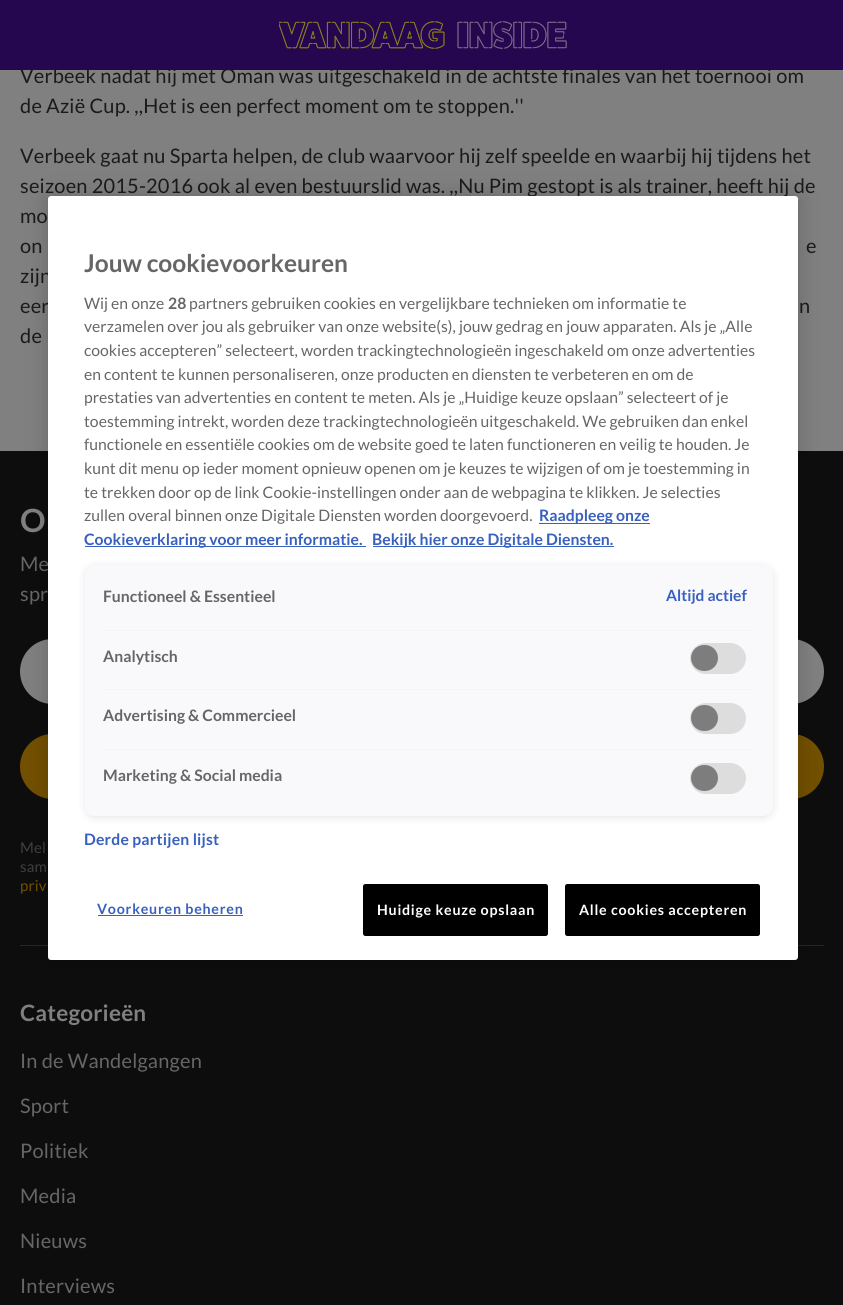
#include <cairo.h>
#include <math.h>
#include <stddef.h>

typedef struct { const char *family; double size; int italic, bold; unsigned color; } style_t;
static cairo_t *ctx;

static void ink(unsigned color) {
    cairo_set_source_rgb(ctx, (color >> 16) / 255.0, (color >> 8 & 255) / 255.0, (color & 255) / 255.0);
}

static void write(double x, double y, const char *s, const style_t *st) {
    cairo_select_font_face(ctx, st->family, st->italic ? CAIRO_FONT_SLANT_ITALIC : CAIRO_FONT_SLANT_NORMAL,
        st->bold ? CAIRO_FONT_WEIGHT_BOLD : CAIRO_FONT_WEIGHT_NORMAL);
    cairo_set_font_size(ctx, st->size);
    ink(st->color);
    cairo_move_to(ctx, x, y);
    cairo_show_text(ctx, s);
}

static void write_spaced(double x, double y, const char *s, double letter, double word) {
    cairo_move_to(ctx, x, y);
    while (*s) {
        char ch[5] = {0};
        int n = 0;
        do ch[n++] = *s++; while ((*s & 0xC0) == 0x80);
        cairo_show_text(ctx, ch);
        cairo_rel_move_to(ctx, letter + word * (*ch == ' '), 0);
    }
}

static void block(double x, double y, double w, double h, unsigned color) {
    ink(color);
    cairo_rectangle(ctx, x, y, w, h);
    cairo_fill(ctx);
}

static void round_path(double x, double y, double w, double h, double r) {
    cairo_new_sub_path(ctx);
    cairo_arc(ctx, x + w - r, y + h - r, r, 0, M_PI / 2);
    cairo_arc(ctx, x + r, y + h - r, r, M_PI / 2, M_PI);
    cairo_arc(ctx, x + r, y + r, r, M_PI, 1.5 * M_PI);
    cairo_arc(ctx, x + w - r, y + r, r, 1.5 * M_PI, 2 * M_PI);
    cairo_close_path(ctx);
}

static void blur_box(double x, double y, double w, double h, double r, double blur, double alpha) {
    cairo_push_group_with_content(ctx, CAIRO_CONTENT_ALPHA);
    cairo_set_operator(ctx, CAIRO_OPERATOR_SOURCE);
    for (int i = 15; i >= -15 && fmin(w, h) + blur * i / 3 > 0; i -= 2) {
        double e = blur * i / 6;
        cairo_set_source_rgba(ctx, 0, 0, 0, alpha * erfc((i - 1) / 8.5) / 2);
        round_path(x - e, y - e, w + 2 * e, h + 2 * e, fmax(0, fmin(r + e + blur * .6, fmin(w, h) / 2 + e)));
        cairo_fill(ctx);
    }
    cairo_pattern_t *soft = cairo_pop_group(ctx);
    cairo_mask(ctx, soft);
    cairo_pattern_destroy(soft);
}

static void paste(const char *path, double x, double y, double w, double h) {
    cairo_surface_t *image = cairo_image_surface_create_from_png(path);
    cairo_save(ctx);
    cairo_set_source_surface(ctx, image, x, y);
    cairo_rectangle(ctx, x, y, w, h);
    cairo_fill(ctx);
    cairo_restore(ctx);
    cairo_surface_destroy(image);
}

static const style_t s1 = {"Lato", 24.5, 0, 1, 0x666666};
static const style_t s2 = {"Lato", 15.75, 0, 0, 0x666666};
static const style_t s3 = {"Lato", 15.75, 0, 1, 0x666666};
static const style_t s4 = {"Lato", 15.75, 0, 1, 0x3860be};
static const style_t s5 = {"Lato", 15.5, 0, 1, 0x3860be};

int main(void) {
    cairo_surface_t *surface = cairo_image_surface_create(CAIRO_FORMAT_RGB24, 843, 1305);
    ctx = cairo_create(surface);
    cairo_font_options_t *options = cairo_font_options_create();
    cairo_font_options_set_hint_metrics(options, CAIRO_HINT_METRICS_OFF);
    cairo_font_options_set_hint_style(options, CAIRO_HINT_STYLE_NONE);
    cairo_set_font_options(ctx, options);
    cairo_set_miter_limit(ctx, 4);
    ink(0x808080);
    cairo_paint(ctx);
    cairo_select_font_face(ctx, "Lato", CAIRO_FONT_SLANT_NORMAL, CAIRO_FONT_WEIGHT_NORMAL);
    cairo_set_font_size(ctx, 20);
    ink(0x1a1a1a);
    write_spaced(20, 83, "Verbeek nadat hij met Oman was uitgeschakeld in de achtste finales van het toernooi om", 0.2, 0);
    block(0, 0, 843, 70, 0x24074f);
    paste("pic1.png", 279, 21, 288, 28);
    ink(0x1a1a1a);
    write_spaced(20, 113, "de Azië Cup. ,,Het is een perfect moment om te stoppen.''", 0.2, 0);
    write_spaced(20, 163, "Verbeek gaat nu Sparta helpen, de club waarvoor hij zelf speelde en waarbij hij tijdens het", 0.2, 0);
    write_spaced(20, 193, "seizoen 2015-2016 ook al even bestuurslid was. ,,Nu Pim gestopt is als trainer, heeft hij de", 0.2, 0);
    write_spaced(20, 223, "mo", 0.2, 0);
    write_spaced(20, 253, "on", 0.2, 0);
    write_spaced(806, 253, "e", 0.2, 0);
    write_spaced(20, 283, "zijn", 0.2, 0);
    write_spaced(20, 313, "eer", 0.2, 0);
    write_spaced(799, 313, "n", 0.2, 0);
    write_spaced(20, 343, "de", 0.2, 0);
    block(0, 451, 843, 854, 0x0d0d0d);
    block(20, 945, 804, 1, 0x272727);
    cairo_select_font_face(ctx, "Lato", CAIRO_FONT_SLANT_NORMAL, CAIRO_FONT_WEIGHT_BOLD);
    cairo_set_font_size(ctx, 32);
    ink(0x808080);
    write_spaced(20, 532, "O", 0.2, 0);
    cairo_select_font_face(ctx, "Lato", CAIRO_FONT_SLANT_NORMAL, CAIRO_FONT_WEIGHT_NORMAL);
    cairo_set_font_size(ctx, 20);
    ink(0x666666);
    write_spaced(20, 571, "Me", 0.2, 0);
    write_spaced(20, 601, "spr", 0.2, 0);
    ink(0x808080);
    round_path(20, 639, 804, 65, 32.5);
    cairo_fill(ctx);
    ink(0x725000);
    round_path(20, 734, 804, 65, 32.5);
    cairo_fill(ctx);
    cairo_set_font_size(ctx, 15);
    ink(0x404040);
    write_spaced(20, 853, "Mel", 0.2, 0);
    write_spaced(20, 872, "sam", 0.2, 0);
    ink(0x725000);
    write_spaced(20, 891, "priv", 0.2, 0);
    cairo_select_font_face(ctx, "Lato", CAIRO_FONT_SLANT_NORMAL, CAIRO_FONT_WEIGHT_BOLD);
    cairo_set_font_size(ctx, 22.5);
    ink(0x808080);
    write_spaced(20, 1021, "Categorieën", 0.2, 0);
    cairo_select_font_face(ctx, "Lato", CAIRO_FONT_SLANT_NORMAL, CAIRO_FONT_WEIGHT_NORMAL);
    cairo_set_font_size(ctx, 20);
    ink(0x666666);
    write_spaced(20, 1068, "In de Wandelgangen", 0.2, 0);
    write_spaced(20, 1113, "Sport", 0.2, 0);
    write_spaced(20, 1158, "Politiek", 0.2, 0);
    write_spaced(20, 1203, "Media", 0.2, 0);
    write_spaced(20, 1248, "Nieuws", 0.2, 0);
    write_spaced(20, 1293, "Interviews", 0.2, 0);
    ink(0x000000);
    blur_box(48, 196, 750, 764, 3, 11, 0.2);
    ink(0xffffff);
    round_path(48, 196, 750, 764, 3);
    cairo_fill(ctx);
    write(84, 272, "Jouw cookievoorkeuren", &s1);
    write(84, 309, "Wij en onze", &s2);
    write(168, 309, "28", &s3);
    write(189, 309, "partners gebruiken cookies en vergelijkbare technieken om informatie te", &s2);
    write(84, 332, "verzamelen over jou als gebruiker van onze website(s), jouw gedrag en jouw apparaten. Als je „Alle", &s2);
    write(84, 356, "cookies accepteren” selecteert, worden trackingtechnologieën ingeschakeld om onze advertenties", &s2);
    write(84, 380, "en content te kunnen personaliseren, onze producten en diensten te verbeteren en om de", &s2);
    write(84, 403, "prestaties van advertenties en content te meten. Als je „Huidige keuze opslaan” selecteert of je", &s2);
    write(84, 427, "toestemming intrekt, worden deze trackingtechnologieën uitgeschakeld. We gebruiken dan enkel", &s2);
    write(84, 450, "functionele en essentiële cookies om de website goed te laten functioneren en veilig te houden. Je", &s2);
    write(84, 474, "kunt dit menu op ieder moment opnieuw openen om je keuzes te wijzigen of om je toestemming in", &s2);
    write(84, 498, "te trekken door op de link Cookie-instellingen onder aan de webpagina te klikken. Je selecties", &s2);
    write(84, 521, "zullen overal binnen onze Digitale Diensten worden doorgevoerd.", &s2);
    block(539, 523, 111, 1, 0x3860be);
    write(539, 521, "Raadpleeg onze", &s4);
    block(85, 546, 281, 1, 0x3860be);
    write(84, 545, "Cookieverklaring voor meer informatie.", &s4);
    block(373, 546, 241, 1, 0x3860be);
    write(372, 545, "Bekijk hier onze Digitale Diensten.", &s4);
    ink(0x000000);
    blur_box(85, 566, 688, 252, 10, 4, 0.1);
    ink(0xf9f9fc);
    round_path(85, 565, 688, 251, 10);
    cairo_fill(ctx);
    block(104, 630, 650, 1, 0xf4f4f4);
    write(103, 602, "Functioneel & Essentieel", &s3);
    write(666, 601, "Altijd actief", &s5);
    block(104, 689, 650, 1, 0xf4f4f4);
    write(103, 662, "Analytisch", &s3);
    ink(0xdddddd);
    cairo_new_path(ctx);
    cairo_move_to(ctx, 706, 643);
    cairo_line_to(ctx, 730, 643);
    cairo_curve_to(ctx, 739, 643, 746, 650, 746, 658);
    cairo_curve_to(ctx, 746, 667, 739, 674, 730, 674);
    cairo_line_to(ctx, 706, 674);
    cairo_curve_to(ctx, 697, 674, 690, 667, 690, 658);
    cairo_curve_to(ctx, 690, 650, 697, 643, 706, 643);
    cairo_close_path(ctx);
    cairo_fill(ctx);
    ink(0x7d7d7d);
    round_path(691, 645, 27, 26, 13);
    cairo_fill(ctx);
    block(104, 749, 650, 1, 0xf4f4f4);
    write(103, 721, "Advertising & Commercieel", &s3);
    ink(0xdddddd);
    cairo_new_path(ctx);
    cairo_move_to(ctx, 706, 703);
    cairo_line_to(ctx, 730, 703);
    cairo_curve_to(ctx, 739, 703, 746, 710, 746, 718);
    cairo_curve_to(ctx, 746, 727, 739, 734, 730, 734);
    cairo_line_to(ctx, 706, 734);
    cairo_curve_to(ctx, 697, 734, 690, 727, 690, 718);
    cairo_curve_to(ctx, 690, 710, 697, 703, 706, 703);
    cairo_close_path(ctx);
    cairo_fill(ctx);
    ink(0x7d7d7d);
    round_path(691, 705, 27, 26, 13);
    cairo_fill(ctx);
    write(103, 781, "Marketing & Social media", &s3);
    ink(0xdddddd);
    cairo_new_path(ctx);
    cairo_move_to(ctx, 706, 763);
    cairo_line_to(ctx, 730, 763);
    cairo_curve_to(ctx, 739, 763, 746, 770, 746, 778);
    cairo_curve_to(ctx, 746, 787, 739, 794, 730, 794);
    cairo_line_to(ctx, 706, 794);
    cairo_curve_to(ctx, 697, 794, 690, 787, 690, 778);
    cairo_curve_to(ctx, 690, 770, 697, 763, 706, 763);
    cairo_close_path(ctx);
    cairo_fill(ctx);
    ink(0x7d7d7d);
    round_path(691, 765, 27, 26, 13);
    cairo_fill(ctx);
    ink(0x3860be);
    write_spaced(84, 845, "Derde partijen lijst", 0.2, 0);
    cairo_set_font_size(ctx, 14.25);
    write_spaced(97, 914, "Voorkeuren beheren", 0.75, 0);
    block(98, 915, 145, 1, 0x3860be);
    ink(0x000000);
    round_path(363.5, 884.5, 184, 51, 2);
    cairo_fill_preserve(ctx);
    cairo_set_line_width(ctx, 1);
    cairo_stroke(ctx);
    ink(0xffffff);
    write_spaced(377, 915, "Huidige keuze opslaan", 0.75, 0);
    ink(0x000000);
    round_path(565.5, 884.5, 194, 51, 2);
    cairo_fill_preserve(ctx);
    cairo_stroke(ctx);
    ink(0xffffff);
    write_spaced(579, 915, "Alle cookies accepteren", 0.75, 0);
    cairo_surface_write_to_png(surface, "screenshot.png");
    cairo_font_options_destroy(options);
    cairo_destroy(ctx);
    cairo_surface_destroy(surface);
    return 0;
}
